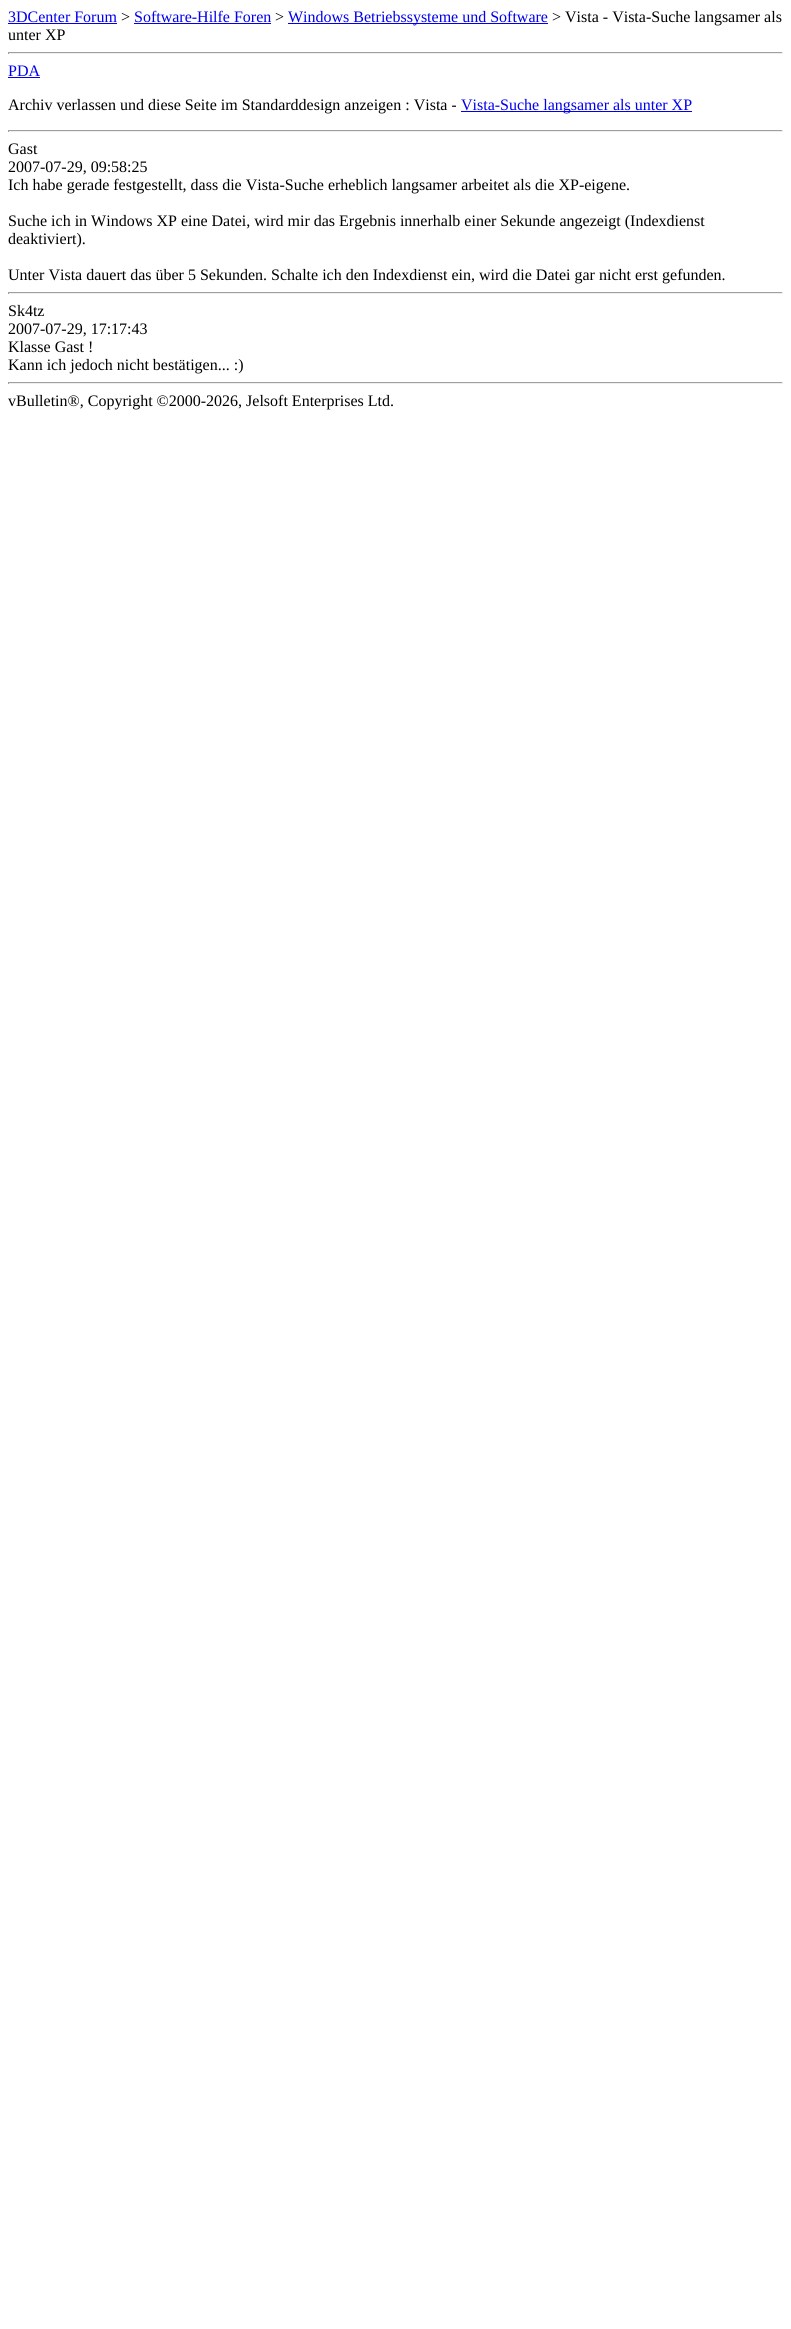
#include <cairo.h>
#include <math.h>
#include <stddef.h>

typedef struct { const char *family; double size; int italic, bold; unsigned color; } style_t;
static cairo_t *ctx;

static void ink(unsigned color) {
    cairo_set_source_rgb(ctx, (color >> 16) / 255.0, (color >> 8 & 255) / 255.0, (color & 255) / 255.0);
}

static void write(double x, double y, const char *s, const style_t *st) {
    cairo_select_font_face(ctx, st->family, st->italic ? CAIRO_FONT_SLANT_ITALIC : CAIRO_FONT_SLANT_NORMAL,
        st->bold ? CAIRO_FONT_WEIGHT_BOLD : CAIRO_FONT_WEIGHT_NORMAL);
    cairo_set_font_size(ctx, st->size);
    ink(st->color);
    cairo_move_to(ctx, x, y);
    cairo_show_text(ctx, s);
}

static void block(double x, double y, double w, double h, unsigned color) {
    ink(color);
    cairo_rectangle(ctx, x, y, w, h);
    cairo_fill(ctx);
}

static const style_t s1 = {"Liberation Serif", 16, 0, 0, 0x0000ee};
static const style_t s2 = {"Liberation Serif", 16, 0, 0, 0x000000};

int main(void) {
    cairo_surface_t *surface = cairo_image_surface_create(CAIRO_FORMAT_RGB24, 791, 2329);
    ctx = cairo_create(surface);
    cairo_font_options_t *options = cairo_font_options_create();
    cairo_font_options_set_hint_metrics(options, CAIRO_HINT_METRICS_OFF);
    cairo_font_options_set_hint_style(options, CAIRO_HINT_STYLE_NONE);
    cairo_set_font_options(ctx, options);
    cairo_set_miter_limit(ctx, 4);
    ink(0xffffff);
    cairo_paint(ctx);
    write(8, 22, "3DCenter Forum", &s1);
    block(8, 23, 109, 1, 0x0000ee);
    write(121, 22, ">", &s2);
    write(134, 22, "Software-Hilfe Foren", &s1);
    block(134, 23, 137, 1, 0x0000ee);
    write(275, 22, ">", &s2);
    block(288, 23, 260, 1, 0x0000ee);
    write(288, 22, "Windows Betriebssysteme und Software", &s1);
    write(552, 22, "> Vista - Vista-Suche langsamer als", &s2);
    write(8, 40, "unter XP", &s2);
    block(8, 52, 775, 1, 0x9f9f9f);
    block(782, 52, 1, 2, 0xeeeeee);
    block(8, 53, 775, 1, 0xeeeeee);
    block(8, 52, 1, 2, 0x9f9f9f);
    write(8, 76, "PDA", &s1);
    block(8, 77, 32, 1, 0x0000ee);
    write(8, 110, "Archiv verlassen und diese Seite im Standarddesign anzeigen : Vista -", &s2);
    block(461, 111, 231, 1, 0x0000ee);
    write(461, 110, "Vista-Suche langsamer als unter XP", &s1);
    block(8, 130, 775, 1, 0x9f9f9f);
    block(782, 130, 1, 2, 0xeeeeee);
    block(8, 131, 775, 1, 0xeeeeee);
    block(8, 130, 1, 2, 0x9f9f9f);
    write(8, 154, "Gast", &s2);
    write(8, 172, "2007-07-29, 09:58:25", &s2);
    write(8, 190, "Ich habe gerade festgestellt, dass die Vista-Suche erheblich langsamer arbeitet als die XP-eigene.", &s2);
    write(8, 226, "Suche ich in Windows XP eine Datei, wird mir das Ergebnis innerhalb einer Sekunde angezeigt (Indexdienst", &s2);
    write(8, 244, "deaktiviert).", &s2);
    write(8, 280, "Unter Vista dauert das über 5 Sekunden. Schalte ich den Indexdienst ein, wird die Datei gar nicht erst gefunden.", &s2);
    block(8, 292, 775, 1, 0x9f9f9f);
    block(782, 292, 1, 2, 0xeeeeee);
    block(8, 293, 775, 1, 0xeeeeee);
    block(8, 292, 1, 2, 0x9f9f9f);
    write(8, 316, "Sk4tz", &s2);
    write(8, 334, "2007-07-29, 17:17:43", &s2);
    write(8, 352, "Klasse Gast !", &s2);
    write(8, 370, "Kann ich jedoch nicht bestätigen... :)", &s2);
    block(8, 382, 775, 1, 0x9f9f9f);
    block(782, 382, 1, 2, 0xeeeeee);
    block(8, 383, 775, 1, 0xeeeeee);
    block(8, 382, 1, 2, 0x9f9f9f);
    write(8, 406, "vBulletin®, Copyright ©2000-2026, Jelsoft Enterprises Ltd.", &s2);
    cairo_surface_write_to_png(surface, "screenshot.png");
    cairo_font_options_destroy(options);
    cairo_destroy(ctx);
    cairo_surface_destroy(surface);
    return 0;
}
